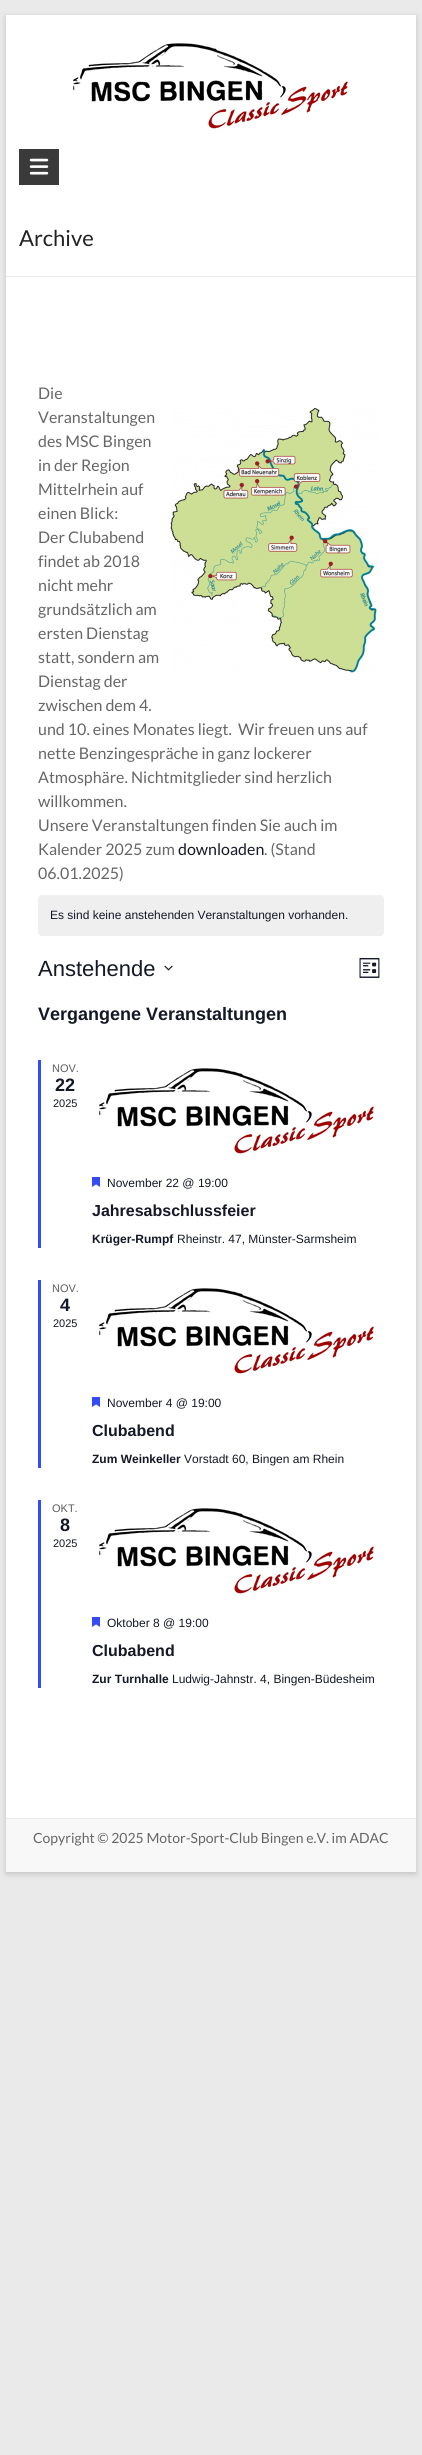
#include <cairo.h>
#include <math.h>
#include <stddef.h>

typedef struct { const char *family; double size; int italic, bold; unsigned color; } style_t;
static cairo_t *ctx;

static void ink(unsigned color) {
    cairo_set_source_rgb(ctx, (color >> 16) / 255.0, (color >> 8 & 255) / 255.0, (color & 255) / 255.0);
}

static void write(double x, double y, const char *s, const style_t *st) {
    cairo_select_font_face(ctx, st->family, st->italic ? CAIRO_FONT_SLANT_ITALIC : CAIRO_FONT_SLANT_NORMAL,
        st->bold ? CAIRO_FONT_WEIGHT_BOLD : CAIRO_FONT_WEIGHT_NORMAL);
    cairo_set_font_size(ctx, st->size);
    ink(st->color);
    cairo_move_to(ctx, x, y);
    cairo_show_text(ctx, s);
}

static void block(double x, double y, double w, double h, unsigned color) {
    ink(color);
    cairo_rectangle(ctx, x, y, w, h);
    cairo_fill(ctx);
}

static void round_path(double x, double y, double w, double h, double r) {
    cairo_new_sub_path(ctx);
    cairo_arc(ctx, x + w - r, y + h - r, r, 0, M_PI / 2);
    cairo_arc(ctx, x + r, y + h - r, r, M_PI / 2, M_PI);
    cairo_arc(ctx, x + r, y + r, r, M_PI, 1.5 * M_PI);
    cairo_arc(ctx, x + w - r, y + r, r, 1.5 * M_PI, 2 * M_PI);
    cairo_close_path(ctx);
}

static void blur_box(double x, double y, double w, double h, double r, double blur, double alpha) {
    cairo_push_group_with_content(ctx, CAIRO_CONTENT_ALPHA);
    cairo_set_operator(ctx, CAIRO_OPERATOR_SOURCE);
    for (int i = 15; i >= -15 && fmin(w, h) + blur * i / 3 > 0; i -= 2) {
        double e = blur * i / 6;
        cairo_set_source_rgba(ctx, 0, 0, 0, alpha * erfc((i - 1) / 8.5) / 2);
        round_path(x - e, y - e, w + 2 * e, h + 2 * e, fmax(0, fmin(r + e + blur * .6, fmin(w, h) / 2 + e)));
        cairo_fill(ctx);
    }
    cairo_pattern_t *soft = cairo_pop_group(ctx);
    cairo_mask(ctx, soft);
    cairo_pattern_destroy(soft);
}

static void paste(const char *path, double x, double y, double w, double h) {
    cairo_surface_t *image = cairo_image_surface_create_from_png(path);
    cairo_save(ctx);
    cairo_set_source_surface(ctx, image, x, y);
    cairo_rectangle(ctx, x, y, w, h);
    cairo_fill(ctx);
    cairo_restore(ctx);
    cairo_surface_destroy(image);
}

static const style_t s1 = {"Lato", 22, 0, 0, 0x222222};
static const style_t s2 = {"Lato", 16, 0, 0, 0x666666};
static const style_t s3 = {"Lato", 16, 0, 0, 0x141827};
static const style_t s4 = {"Liberation Sans", 12, 0, 0, 0x141827};
static const style_t s5 = {"Liberation Sans", 22, 0, 0, 0x141827};
static const style_t s6 = {"Liberation Sans", 18, 0, 1, 0x141827};
static const style_t s7 = {"Liberation Sans", 11, 0, 0, 0x5d5d5d};
static const style_t s8 = {"Liberation Sans", 11, 0, 0, 0x141827};
static const style_t s9 = {"Liberation Sans", 16, 0, 1, 0x141827};
static const style_t s10 = {"Liberation Sans", 12, 0, 1, 0x141827};
static const style_t s11 = {"Lato", 14, 0, 0, 0x666666};

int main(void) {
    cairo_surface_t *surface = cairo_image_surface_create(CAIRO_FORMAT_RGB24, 422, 2455);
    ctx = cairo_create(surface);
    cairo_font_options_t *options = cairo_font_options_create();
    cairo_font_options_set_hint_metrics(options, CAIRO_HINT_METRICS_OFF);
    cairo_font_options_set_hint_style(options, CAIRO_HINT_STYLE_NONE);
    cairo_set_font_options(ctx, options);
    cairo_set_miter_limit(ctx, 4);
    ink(0xeaeaea);
    cairo_paint(ctx);
    ink(0x646464);
    blur_box(6, 17, 410, 1857, 0, 3, 0.3);
    block(6, 15, 410, 1803, 0xffffff);
    paste("pic1.png", 73, 43, 275, 86);
    block(19, 149, 40, 36, 0x3a3a3a);
    paste("pic2.png", 29, 158, 20, 17);
    block(6, 276, 410, 1, 0xeaeaea);
    write(19, 246, "Archive", &s1);
    write(38, 399, "Die", &s2);
    write(38, 423, "Veranstaltungen", &s2);
    paste("pic3.png", 170, 407, 207, 266);
    write(38, 447, "des MSC Bingen", &s2);
    write(38, 471, "in der Region", &s2);
    write(38, 495, "Mittelrhein auf", &s2);
    write(38, 519, "einen Blick:", &s2);
    write(38, 543, "Der Clubabend", &s2);
    write(38, 567, "findet ab 2018", &s2);
    write(38, 591, "nicht mehr", &s2);
    write(38, 615, "grundsätzlich am", &s2);
    write(38, 639, "ersten Dienstag", &s2);
    write(38, 663, "statt, sondern am", &s2);
    write(38, 687, "Dienstag der", &s2);
    write(38, 711, "zwischen dem 4.", &s2);
    write(38, 735, "und 10. eines Monates liegt.  Wir freuen uns auf", &s2);
    write(38, 759, "nette Benzingespräche in ganz lockerer", &s2);
    write(38, 783, "Atmosphäre. Nichtmitglieder sind herzlich", &s2);
    write(38, 807, "willkommen.", &s2);
    write(38, 831, "Unsere Veranstaltungen finden Sie auch im", &s2);
    write(38, 855, "Kalender 2025 zum", &s2);
    write(178, 855, "downloaden", &s3);
    write(264, 855, ". (Stand", &s2);
    write(38, 879, "06.01.2025)", &s2);
    ink(0xefeff0);
    round_path(38, 895, 346, 41, 4);
    cairo_fill(ctx);
    write(50, 919, "Es sind keine anstehenden Veranstaltungen vorhanden.", &s4);
    write(38, 976, "Anstehende", &s5);
    paste("pic4.png", 164, 965, 9, 6);
    paste("pic5.png", 359, 958, 21, 20);
    write(38, 1020, "Vergangene Veranstaltungen", &s6);
    block(38, 1060, 3, 188, 0x334aff);
    write(52, 1072, "NOV.", &s7);
    write(55, 1091, "22", &s6);
    write(53, 1107, "2025", &s8);
    paste("pic1.png", 99, 1068, 275, 86);
    paste("pic6.png", 92, 1177, 8, 10);
    write(107, 1187, "November 22 @ 19:00", &s4);
    write(92, 1216, "Jahresabschlussfeier", &s9);
    write(92, 1243, "Krüger-Rumpf", &s10);
    write(177, 1243, "Rheinstr. 47, Münster-Sarmsheim", &s4);
    block(38, 1280, 3, 188, 0x334aff);
    write(52, 1292, "NOV.", &s7);
    write(60, 1311, "4", &s6);
    write(53, 1327, "2025", &s8);
    paste("pic1.png", 99, 1288, 275, 86);
    paste("pic6.png", 92, 1397, 8, 10);
    write(107, 1407, "November 4 @ 19:00", &s4);
    write(92, 1436, "Clubabend", &s9);
    write(92, 1463, "Zum Weinkeller", &s10);
    write(184, 1463, "Vorstadt 60, Bingen am Rhein", &s4);
    block(38, 1500, 3, 188, 0x334aff);
    write(52, 1512, "OKT.", &s7);
    write(60, 1531, "8", &s6);
    write(53, 1547, "2025", &s8);
    paste("pic1.png", 99, 1508, 275, 86);
    paste("pic6.png", 92, 1617, 8, 10);
    write(107, 1627, "Oktober 8 @ 19:00", &s4);
    write(92, 1656, "Clubabend", &s9);
    write(92, 1683, "Zur Turnhalle", &s10);
    write(172, 1683, "Ludwig-Jahnstr. 4, Bingen-Büdesheim", &s4);
    block(6, 1819, 410, 53, 0xf8f8f8);
    block(6, 1818, 410, 1, 0xeaeaea);
    write(33, 1843, "Copyright © 2025 Motor-Sport-Club Bingen e.V. im ADAC", &s11);
    cairo_surface_write_to_png(surface, "screenshot.png");
    cairo_font_options_destroy(options);
    cairo_destroy(ctx);
    cairo_surface_destroy(surface);
    return 0;
}
